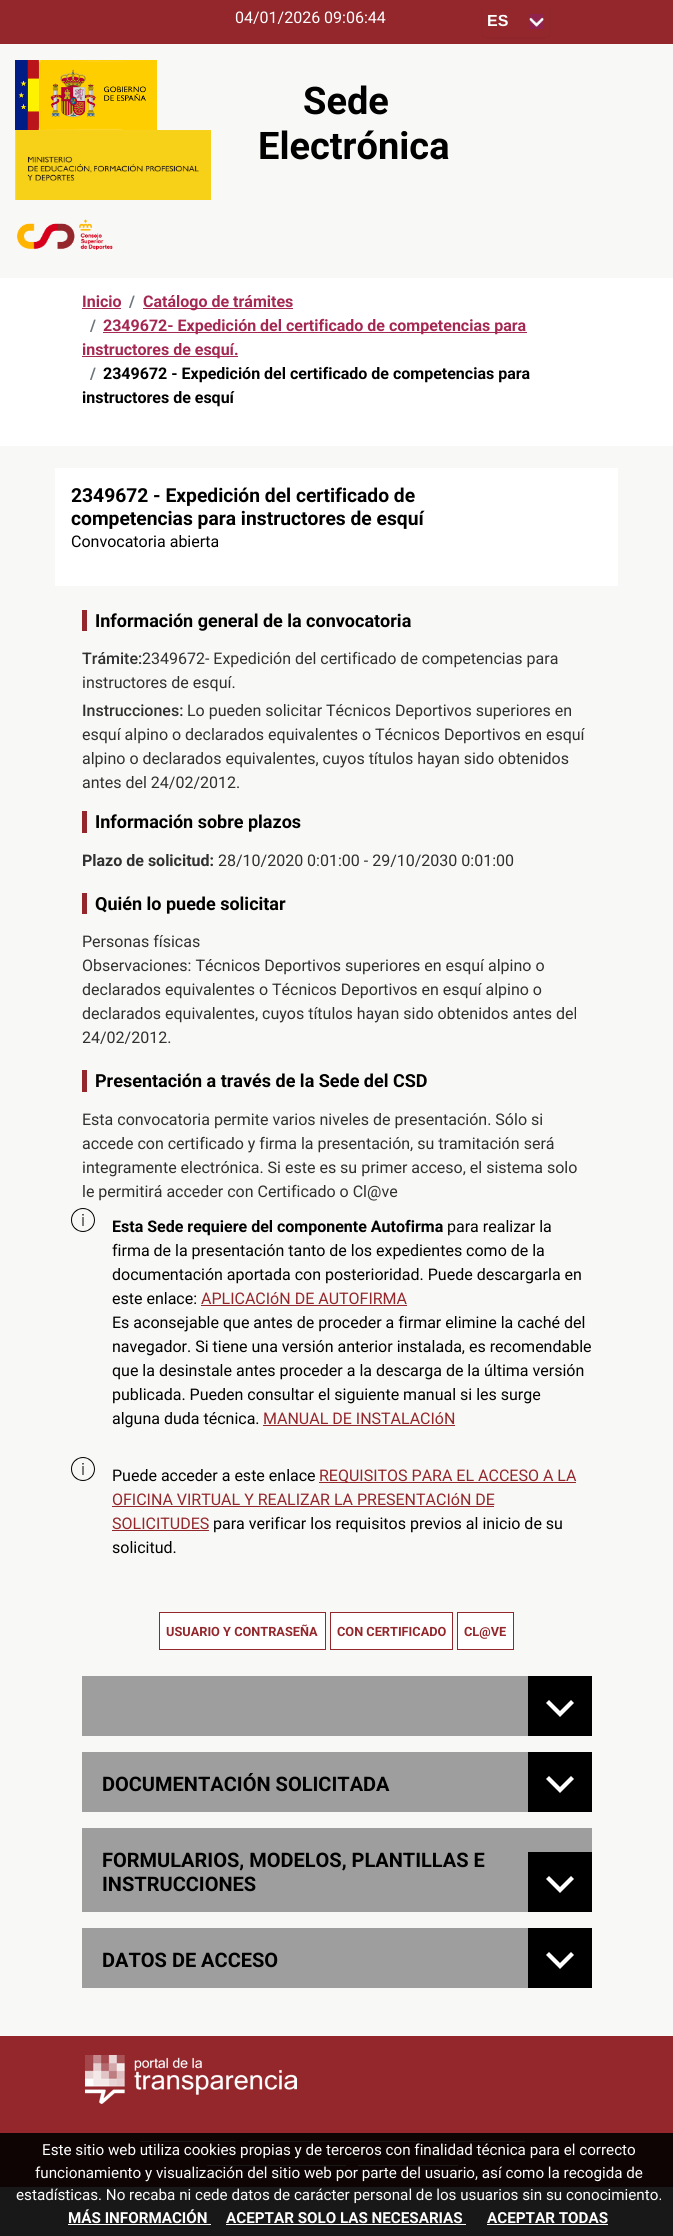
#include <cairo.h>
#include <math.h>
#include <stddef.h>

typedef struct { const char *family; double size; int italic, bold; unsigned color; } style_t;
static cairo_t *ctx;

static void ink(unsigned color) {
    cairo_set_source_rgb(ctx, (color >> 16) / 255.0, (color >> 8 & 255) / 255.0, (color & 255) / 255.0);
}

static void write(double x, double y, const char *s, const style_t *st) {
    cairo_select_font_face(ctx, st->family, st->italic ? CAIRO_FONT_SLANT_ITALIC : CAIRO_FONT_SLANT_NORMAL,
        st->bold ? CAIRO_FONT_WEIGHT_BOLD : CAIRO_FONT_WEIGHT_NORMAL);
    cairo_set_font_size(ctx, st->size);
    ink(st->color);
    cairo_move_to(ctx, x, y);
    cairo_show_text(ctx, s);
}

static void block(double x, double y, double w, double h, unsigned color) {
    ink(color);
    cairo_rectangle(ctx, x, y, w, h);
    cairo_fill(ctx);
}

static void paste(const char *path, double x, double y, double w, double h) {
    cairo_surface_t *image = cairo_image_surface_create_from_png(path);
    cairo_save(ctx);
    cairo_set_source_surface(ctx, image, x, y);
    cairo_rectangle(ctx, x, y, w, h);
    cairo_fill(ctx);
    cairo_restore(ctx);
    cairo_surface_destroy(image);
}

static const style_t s1 = {"Roboto", 16, 0, 0, 0xffffff};
static const style_t s2 = {"Liberation Sans", 16, 0, 1, 0xffffff};
static const style_t s3 = {"Roboto", 38, 0, 1, 0x000000};
static const style_t s4 = {"Roboto", 16, 0, 1, 0xa42851};
static const style_t s5 = {"Roboto", 16, 0, 1, 0x6c757d};
static const style_t s6 = {"Roboto", 16, 0, 1, 0x000000};
static const style_t s7 = {"Roboto", 19.25, 0, 1, 0x000000};
static const style_t s8 = {"Roboto", 16, 0, 0, 0x000000};
static const style_t s9 = {"Roboto", 18, 0, 1, 0x000000};
static const style_t s10 = {"Roboto Medium", 16, 0, 0, 0x303030};
static const style_t s11 = {"Roboto", 16, 0, 0, 0x303030};
static const style_t s12 = {"Roboto", 16, 0, 1, 0x303030};
static const style_t s13 = {"Roboto", 16, 0, 0, 0x93272c};
static const style_t s14 = {"Roboto", 12.75, 0, 1, 0x93272c};
static const style_t s15 = {"Roboto", 20, 0, 1, 0x000000};
static const style_t s16 = {"Roboto", 15.2, 0, 0, 0xffffff};
static const style_t s17 = {"Roboto", 15.2, 0, 1, 0xffffff};

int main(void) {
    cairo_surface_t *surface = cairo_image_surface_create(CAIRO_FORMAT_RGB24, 673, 2236);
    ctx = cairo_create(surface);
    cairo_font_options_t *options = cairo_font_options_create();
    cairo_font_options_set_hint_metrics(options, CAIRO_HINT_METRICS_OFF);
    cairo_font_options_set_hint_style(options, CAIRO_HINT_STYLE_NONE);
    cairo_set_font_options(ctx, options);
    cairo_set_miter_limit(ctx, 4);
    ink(0xf8f8f6);
    cairo_paint(ctx);
    block(0, 0, 673, 44, 0x93272c);
    write(235, 23, "04/01/2026 09:06:44", &s1);
    ink(0x8f262b);
    cairo_new_path(ctx);
    cairo_move_to(ctx, 547, 6);
    cairo_curve_to(ctx, 549, 7, 550, 9, 550, 11);
    cairo_line_to(ctx, 550, 32);
    cairo_curve_to(ctx, 550, 35, 548, 37, 545, 37);
    cairo_line_to(ctx, 487, 37);
    cairo_curve_to(ctx, 484, 37, 482, 35, 482, 32);
    cairo_line_to(ctx, 482, 11);
    cairo_curve_to(ctx, 482, 9, 483, 7, 485, 6);
    cairo_curve_to(ctx, 483, 7, 481, 9, 481, 12);
    cairo_line_to(ctx, 481, 33);
    cairo_curve_to(ctx, 481, 36, 484, 39, 487, 39);
    cairo_line_to(ctx, 545, 39);
    cairo_curve_to(ctx, 548, 39, 551, 36, 551, 33);
    cairo_line_to(ctx, 551, 12);
    cairo_curve_to(ctx, 551, 9, 549, 7, 547, 6);
    cairo_close_path(ctx);
    cairo_fill(ctx);
    paste("pic1.png", 529, 14, 15, 15);
    write(487, 26, "ES", &s2);
    paste("pic2.png", 15, 60, 142, 70);
    paste("pic3.png", 15, 130, 196, 70);
    paste("pic4.png", 17, 219, 96, 31);
    write(303, 114, "Sede", &s3);
    write(258, 159, "Electrónica", &s3);
    block(0, 278, 673, 168, 0xffffff);
    write(82, 307, "Inicio", &s4);
    block(82, 308, 39, 1, 0xa42851);
    write(129, 307, "/", &s5);
    block(143, 308, 150, 1, 0xa42851);
    write(143, 307, "Catálogo de trámites", &s4);
    write(90, 331, "/", &s5);
    block(103, 332, 424, 1, 0xa42851);
    write(103, 331, "2349672- Expedición del certificado de competencias para", &s4);
    block(82, 356, 156, 1, 0xa42851);
    write(82, 355, "instructores de esquí.", &s4);
    write(90, 379, "/", &s5);
    write(103, 379, "2349672 - Expedición del certificado de competencias para", &s6);
    write(82, 403, "instructores de esquí", &s6);
    block(55, 468, 563, 118, 0xffffff);
    write(71, 502, "2349672 - Expedición del certificado de", &s7);
    write(71, 525, "competencias para instructores de esquí", &s7);
    write(71, 547, "Convocatoria abierta", &s8);
    block(82, 610, 5, 21, 0x93272c);
    write(95, 627, "Información general de la convocatoria", &s9);
    write(82, 664, "Trámite:", &s10);
    write(142, 664, "2349672- Expedición del certificado de competencias para", &s11);
    write(82, 688, "instructores de esquí.", &s11);
    write(82, 716, "Instrucciones:", &s10);
    write(187, 716, "Lo pueden solicitar Técnicos Deportivos superiores en", &s11);
    write(82, 740, "esquí alpino o declarados equivalentes o Técnicos Deportivos en esquí", &s11);
    write(82, 764, "alpino o declarados equivalentes, cuyos títulos hayan sido obtenidos", &s11);
    write(82, 788, "antes del 24/02/2012.", &s11);
    block(82, 811, 5, 22, 0x93272c);
    write(95, 828, "Información sobre plazos", &s9);
    write(82, 866, "Plazo de solicitud:", &s12);
    write(218, 866, "28/10/2020 0:01:00 - 29/10/2030 0:01:00", &s11);
    block(82, 893, 5, 21, 0x93272c);
    write(95, 910, "Quién lo puede solicitar", &s9);
    write(82, 947, "Personas físicas", &s11);
    write(82, 971, "Observaciones: Técnicos Deportivos superiores en esquí alpino o", &s11);
    write(82, 995, "declarados equivalentes o Técnicos Deportivos en esquí alpino o", &s11);
    write(82, 1019, "declarados equivalentes, cuyos títulos hayan sido obtenidos antes del", &s11);
    write(82, 1043, "24/02/2012.", &s11);
    block(82, 1070, 5, 22, 0x93272c);
    write(95, 1087, "Presentación a través de la Sede del CSD", &s9);
    write(82, 1125, "Esta convocatoria permite varios niveles de presentación. Sólo si", &s11);
    write(82, 1149, "accede con certificado y firma la presentación, su tramitación será", &s11);
    write(82, 1173, "integramente electrónica. Si este es su primer acceso, el sistema solo", &s11);
    write(82, 1197, "le permitirá acceder con Certificado o Cl@ve", &s11);
    paste("pic5.png", 71, 1208, 24, 24);
    write(112, 1232, "Esta Sede requiere del componente Autofirma", &s6);
    write(447, 1232, "para realizar la", &s8);
    write(112, 1256, "firma de la presentación tanto de los expedientes como de la", &s8);
    write(112, 1280, "documentación aportada con posterioridad. Puede descargarla en", &s8);
    write(112, 1304, "este enlace:", &s8);
    write(201, 1304, "APLICACIóN DE AUTOFIRMA", &s13);
    block(201, 1305, 206, 1, 0x93272c);
    write(112, 1328, "Es aconsejable que antes de proceder a firmar elimine la caché del", &s8);
    write(112, 1352, "navegador. Si tiene una versión anterior instalada, es recomendable", &s8);
    write(112, 1376, "que la desinstale antes proceder a la descarga de la última versión", &s8);
    write(112, 1400, "publicada. Pueden consultar el siguiente manual si les surge", &s8);
    write(112, 1424, "alguna duda técnica.", &s8);
    write(263, 1424, "MANUAL DE INSTALACIóN", &s13);
    block(263, 1425, 192, 1, 0x93272c);
    paste("pic5.png", 71, 1457, 24, 24);
    write(112, 1481, "Puede acceder a este enlace", &s8);
    block(319, 1482, 257, 1, 0x93272c);
    write(319, 1481, "REQUISITOS PARA EL ACCESO A LA", &s13);
    write(112, 1505, "OFICINA VIRTUAL Y REALIZAR LA PRESENTACIóN DE", &s13);
    block(112, 1506, 382, 1, 0x93272c);
    write(112, 1529, "SOLICITUDES", &s13);
    block(112, 1530, 97, 1, 0x93272c);
    write(213, 1529, "para verificar los requisitos previos al inicio de su", &s8);
    write(112, 1553, "solicitud.", &s8);
    ink(0xffffff);
    cairo_rectangle(ctx, 159.5, 1612.5, 166, 37);
    cairo_fill_preserve(ctx);
    ink(0x93272c);
    cairo_set_line_width(ctx, 1);
    cairo_stroke(ctx);
    write(166, 1636, "USUARIO Y CONTRASEÑA", &s14);
    ink(0xffffff);
    cairo_rectangle(ctx, 330.5, 1612.5, 122, 37);
    cairo_fill_preserve(ctx);
    ink(0x93272c);
    cairo_stroke(ctx);
    write(337, 1636, "CON CERTIFICADO", &s14);
    ink(0xffffff);
    cairo_rectangle(ctx, 457.5, 1612.5, 56, 37);
    cairo_fill_preserve(ctx);
    ink(0x93272c);
    cairo_stroke(ctx);
    write(464, 1636, "CL@VE", &s14);
    block(82, 1676, 446, 60, 0x9e9e9e);
    block(528, 1676, 64, 60, 0x000000);
    ink(0xffffff);
    cairo_new_path(ctx);
    cairo_move_to(ctx, 560, 1717);
    cairo_line_to(ctx, 546, 1703);
    cairo_line_to(ctx, 549, 1700);
    cairo_line_to(ctx, 560, 1711);
    cairo_line_to(ctx, 571, 1700);
    cairo_line_to(ctx, 574, 1703);
    cairo_close_path(ctx);
    cairo_fill(ctx);
    block(82, 1752, 446, 60, 0x9e9e9e);
    write(102, 1791, "DOCUMENTACIÓN SOLICITADA", &s15);
    block(528, 1752, 64, 60, 0x000000);
    ink(0xffffff);
    cairo_new_path(ctx);
    cairo_move_to(ctx, 560, 1793);
    cairo_line_to(ctx, 546, 1779);
    cairo_line_to(ctx, 549, 1776);
    cairo_line_to(ctx, 560, 1787);
    cairo_line_to(ctx, 571, 1776);
    cairo_line_to(ctx, 574, 1779);
    cairo_close_path(ctx);
    cairo_fill(ctx);
    block(82, 1828, 510, 84, 0x9e9e9e);
    write(102, 1867, "FORMULARIOS, MODELOS, PLANTILLAS E", &s15);
    block(528, 1852, 64, 60, 0x000000);
    ink(0xffffff);
    cairo_new_path(ctx);
    cairo_move_to(ctx, 560, 1893);
    cairo_line_to(ctx, 546, 1879);
    cairo_line_to(ctx, 549, 1876);
    cairo_line_to(ctx, 560, 1887);
    cairo_line_to(ctx, 571, 1876);
    cairo_line_to(ctx, 574, 1879);
    cairo_close_path(ctx);
    cairo_fill(ctx);
    write(102, 1891, "INSTRUCCIONES", &s15);
    block(82, 1928, 446, 60, 0x9e9e9e);
    write(102, 1967, "DATOS DE ACCESO", &s15);
    block(528, 1928, 64, 60, 0x000000);
    ink(0xffffff);
    cairo_new_path(ctx);
    cairo_move_to(ctx, 560, 1969);
    cairo_line_to(ctx, 546, 1955);
    cairo_line_to(ctx, 549, 1952);
    cairo_line_to(ctx, 560, 1963);
    cairo_line_to(ctx, 571, 1952);
    cairo_line_to(ctx, 574, 1955);
    cairo_close_path(ctx);
    cairo_fill(ctx);
    block(0, 2036, 673, 151, 0x93272c);
    paste("pic6.png", 85, 2055, 212, 49);
    block(140, 2141, 96, 1, 0xf8f8f6);
    block(248, 2141, 277, 1, 0xf8f8f6);
    block(207, 2165, 139, 1, 0xf8f8f6);
    block(358, 2165, 100, 1, 0xf8f8f6);
    cairo_set_source_rgba(ctx, 0, 0, 0, 0.9);
    cairo_rectangle(ctx, 0, 2133, 673, 103);
    cairo_fill(ctx);
    write(42, 2155, "Este sitio web utiliza cookies propias y de terceros con finalidad técnica para el correcto", &s16);
    write(35, 2178, "funcionamiento y visualización del sitio web por parte del usuario, así como la recogida de", &s16);
    write(16, 2200, "estadísticas. No recaba ni cede datos de carácter personal de los usuarios sin su conocimiento.", &s16);
    write(68, 2223, "MÁS INFORMACIÓN", &s17);
    block(68, 2224, 143, 1, 0xffffff);
    write(226, 2223, "ACEPTAR SOLO LAS NECESARIAS", &s17);
    block(226, 2224, 240, 1, 0xffffff);
    write(487, 2223, "ACEPTAR TODAS", &s17);
    block(487, 2224, 121, 1, 0xffffff);
    cairo_surface_write_to_png(surface, "screenshot.png");
    cairo_font_options_destroy(options);
    cairo_destroy(ctx);
    cairo_surface_destroy(surface);
    return 0;
}
